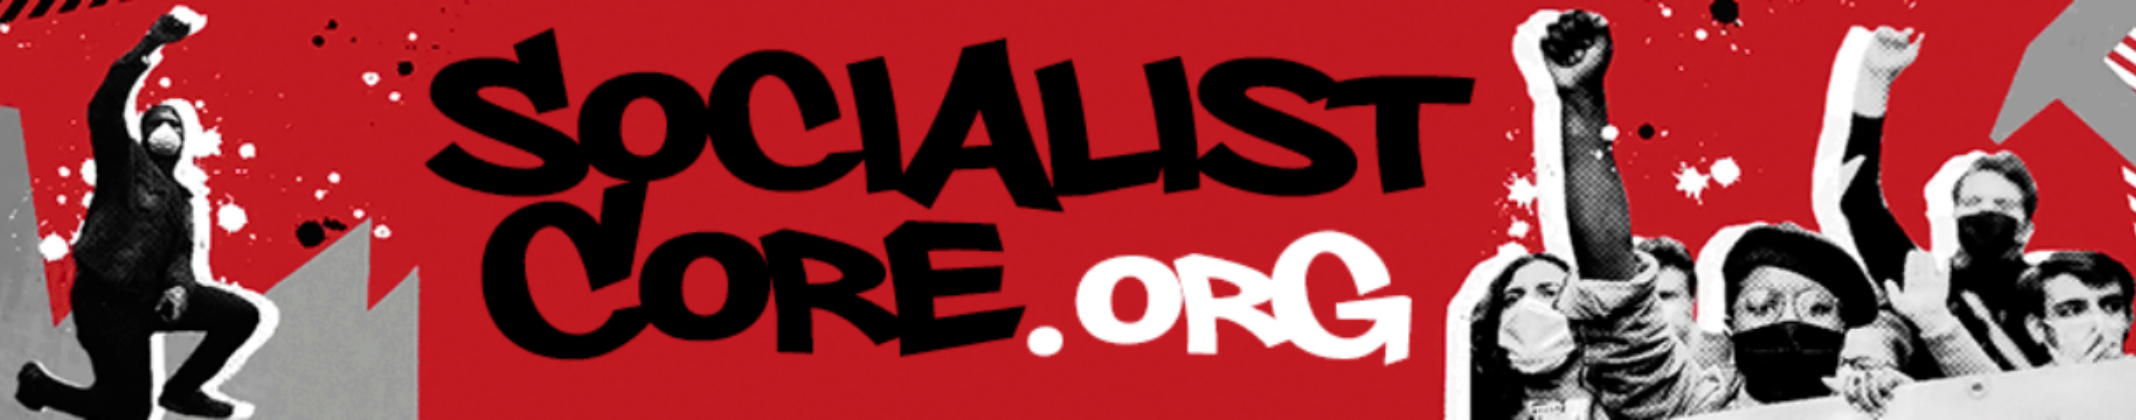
#include <cairo.h>
#include <math.h>
#include <stddef.h>

static cairo_t *ctx;

static void ink(unsigned color) {
    cairo_set_source_rgb(ctx, (color >> 16) / 255.0, (color >> 8 & 255) / 255.0, (color & 255) / 255.0);
}

static void paste(const char *path, double x, double y, double w, double h) {
    cairo_surface_t *image = cairo_image_surface_create_from_png(path);
    cairo_save(ctx);
    cairo_set_source_surface(ctx, image, x, y);
    cairo_rectangle(ctx, x, y, w, h);
    cairo_fill(ctx);
    cairo_restore(ctx);
    cairo_surface_destroy(image);
}

int main(void) {
    cairo_surface_t *surface = cairo_image_surface_create(CAIRO_FORMAT_RGB24, 2136, 420);
    ctx = cairo_create(surface);
    cairo_font_options_t *options = cairo_font_options_create();
    cairo_font_options_set_hint_metrics(options, CAIRO_HINT_METRICS_OFF);
    cairo_font_options_set_hint_style(options, CAIRO_HINT_STYLE_NONE);
    cairo_set_font_options(ctx, options);
    cairo_set_miter_limit(ctx, 4);
    ink(0xffffff);
    cairo_paint(ctx);
    paste("pic1.png", 0, 0, 2136, 420);
    cairo_surface_write_to_png(surface, "screenshot.png");
    cairo_font_options_destroy(options);
    cairo_destroy(ctx);
    cairo_surface_destroy(surface);
    return 0;
}
